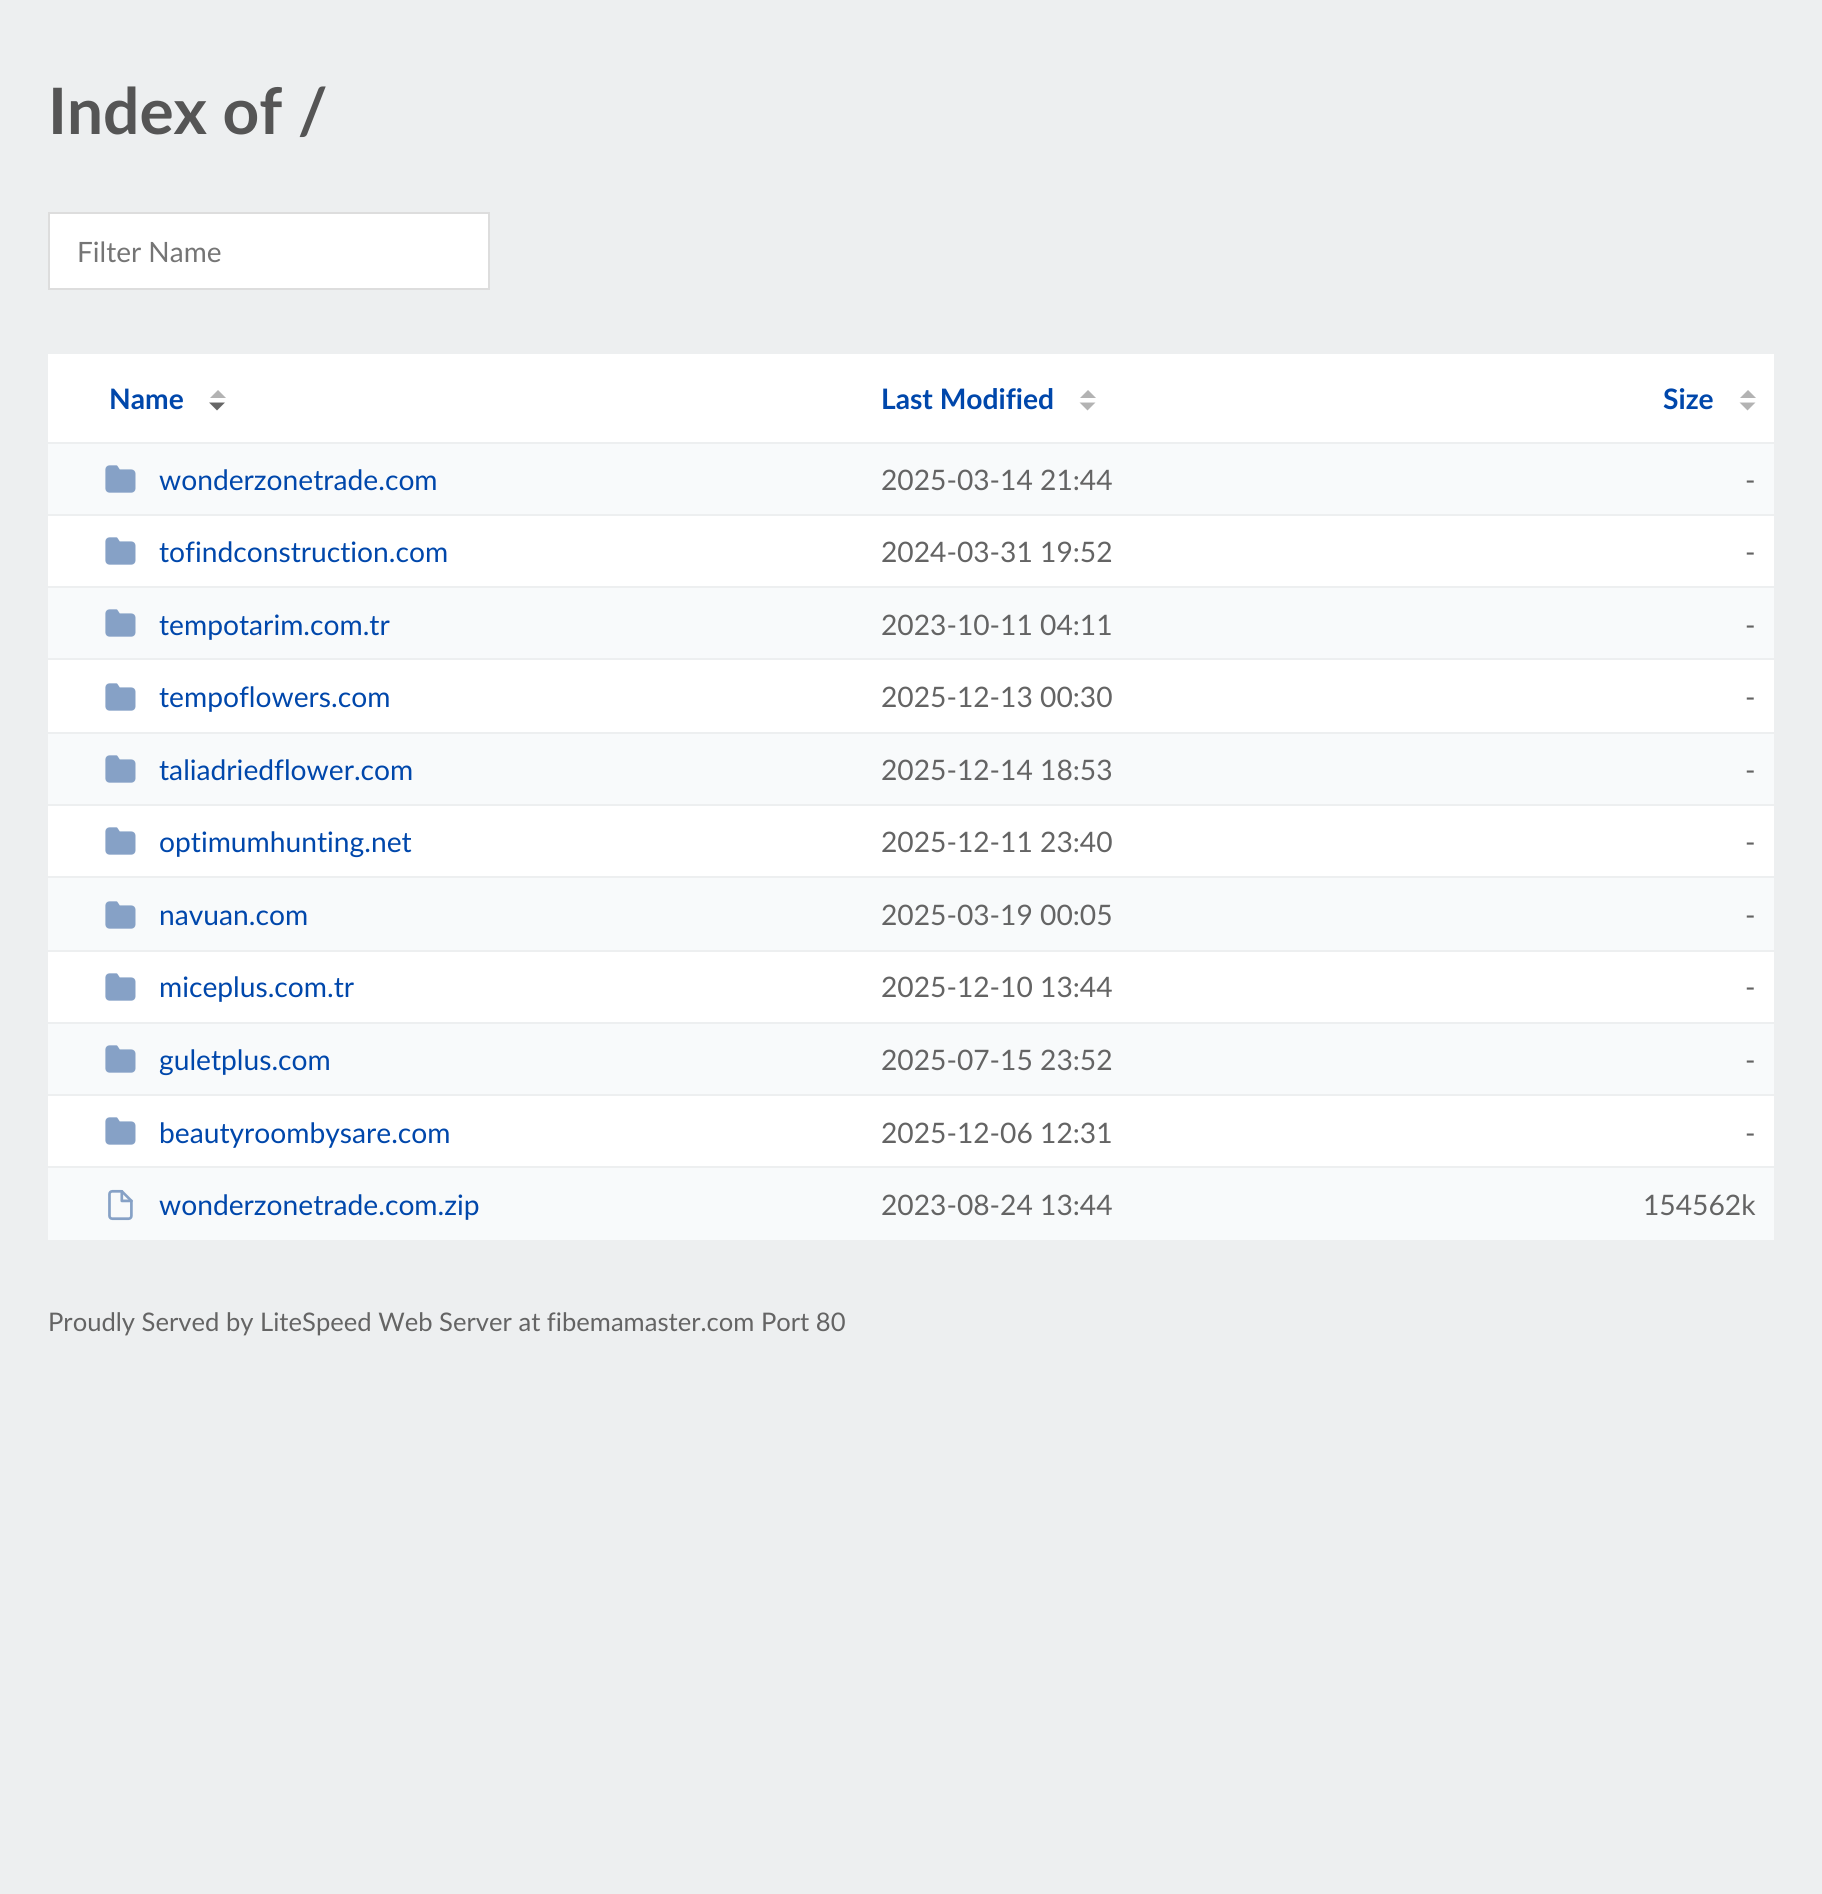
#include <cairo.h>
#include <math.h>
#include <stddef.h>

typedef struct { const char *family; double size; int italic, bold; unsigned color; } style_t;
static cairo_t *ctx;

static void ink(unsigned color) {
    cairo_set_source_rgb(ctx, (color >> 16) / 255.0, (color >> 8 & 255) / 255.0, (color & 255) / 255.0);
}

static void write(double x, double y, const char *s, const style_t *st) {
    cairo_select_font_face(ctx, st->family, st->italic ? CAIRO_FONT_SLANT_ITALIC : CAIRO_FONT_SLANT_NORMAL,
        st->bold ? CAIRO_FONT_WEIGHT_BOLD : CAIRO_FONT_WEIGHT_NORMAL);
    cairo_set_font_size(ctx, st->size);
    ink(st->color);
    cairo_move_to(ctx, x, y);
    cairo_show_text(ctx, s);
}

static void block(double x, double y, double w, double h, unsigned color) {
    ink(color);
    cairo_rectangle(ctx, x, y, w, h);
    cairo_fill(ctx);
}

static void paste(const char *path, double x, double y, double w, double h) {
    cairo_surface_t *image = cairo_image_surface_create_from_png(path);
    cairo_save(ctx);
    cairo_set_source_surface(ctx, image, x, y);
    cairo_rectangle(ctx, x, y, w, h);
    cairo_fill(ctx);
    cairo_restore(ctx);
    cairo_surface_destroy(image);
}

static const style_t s1 = {"Lato", 64, 0, 1, 0x555555};
static const style_t s2 = {"Lato", 28, 0, 0, 0x757575};
static const style_t s3 = {"Lato", 28.2, 0, 1, 0x0047ab};
static const style_t s4 = {"Lato", 28.2, 0, 0, 0x0047ab};
static const style_t s5 = {"Lato", 28.2, 0, 0, 0x646464};
static const style_t s6 = {"Lato", 25.6, 0, 0, 0x646464};

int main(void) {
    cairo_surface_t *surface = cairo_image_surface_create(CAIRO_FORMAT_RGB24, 1822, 1894);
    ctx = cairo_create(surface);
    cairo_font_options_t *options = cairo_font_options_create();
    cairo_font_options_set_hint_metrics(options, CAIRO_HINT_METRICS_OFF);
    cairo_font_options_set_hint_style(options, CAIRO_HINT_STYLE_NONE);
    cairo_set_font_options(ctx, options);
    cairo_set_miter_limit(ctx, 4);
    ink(0xedeff0);
    cairo_paint(ctx);
    write(48, 134, "Index of /", &s1);
    ink(0xffffff);
    cairo_rectangle(ctx, 49, 213, 440, 76);
    cairo_fill_preserve(ctx);
    ink(0xdddddd);
    cairo_stroke(ctx);
    write(77, 262, "Filter Name", &s2);
    block(48, 354, 1726, 812, 0xffffff);
    write(109, 409, "Name", &s3);
    ink(0xb3b3b3);
    cairo_new_path(ctx);
    cairo_move_to(ctx, 226, 398);
    cairo_line_to(ctx, 210, 398);
    cairo_line_to(ctx, 218, 390);
    cairo_close_path(ctx);
    cairo_fill(ctx);
    ink(0x666666);
    cairo_new_path(ctx);
    cairo_move_to(ctx, 209, 402.5);
    cairo_line_to(ctx, 225, 402.5);
    cairo_line_to(ctx, 217, 410.5);
    cairo_close_path(ctx);
    cairo_fill(ctx);
    write(881, 409, "Last Modified", &s3);
    ink(0xb3b3b3);
    cairo_new_path(ctx);
    cairo_move_to(ctx, 1096, 398);
    cairo_line_to(ctx, 1080, 398);
    cairo_line_to(ctx, 1088, 390);
    cairo_close_path(ctx);
    cairo_move_to(ctx, 1079.5, 402.5);
    cairo_line_to(ctx, 1095.5, 402.5);
    cairo_line_to(ctx, 1087.5, 410.5);
    cairo_close_path(ctx);
    cairo_fill(ctx);
    write(1663, 409, "Size", &s3);
    ink(0xb3b3b3);
    cairo_new_path(ctx);
    cairo_move_to(ctx, 1756, 398);
    cairo_line_to(ctx, 1740, 398);
    cairo_line_to(ctx, 1748, 390);
    cairo_close_path(ctx);
    cairo_move_to(ctx, 1739.5, 402.5);
    cairo_line_to(ctx, 1755.5, 402.5);
    cairo_line_to(ctx, 1747.5, 410.5);
    cairo_close_path(ctx);
    cairo_fill(ctx);
    block(48, 444, 1726, 70, 0xf8fafb);
    block(48, 442, 1726, 2, 0xedeff0);
    block(48, 514, 1726, 2, 0xedeff0);
    paste("pic1.png", 105, 465, 31, 28);
    write(159, 490, "wonderzonetrade.com", &s4);
    write(881, 490, "2025-03-14 21:44", &s5);
    write(1745, 490, "-", &s5);
    paste("pic2.png", 105, 537, 31, 28);
    write(159, 562, "tofindconstruction.com", &s4);
    write(881, 562, "2024-03-31 19:52", &s5);
    write(1745, 562, "-", &s5);
    block(48, 588, 1726, 70, 0xf8fafb);
    block(48, 586, 1726, 2, 0xedeff0);
    block(48, 658, 1726, 2, 0xedeff0);
    paste("pic1.png", 105, 609, 31, 28);
    write(159, 635, "tempotarim.com.tr", &s4);
    write(881, 635, "2023-10-11 04:11", &s5);
    write(1745, 635, "-", &s5);
    paste("pic2.png", 105, 683, 31, 28);
    write(159, 707, "tempoflowers.com", &s4);
    write(881, 707, "2025-12-13 00:30", &s5);
    write(1745, 707, "-", &s5);
    block(48, 734, 1726, 70, 0xf8fafb);
    block(48, 732, 1726, 2, 0xedeff0);
    block(48, 804, 1726, 2, 0xedeff0);
    paste("pic1.png", 105, 755, 31, 28);
    write(159, 780, "taliadriedflower.com", &s4);
    write(881, 780, "2025-12-14 18:53", &s5);
    write(1745, 780, "-", &s5);
    paste("pic2.png", 105, 827, 31, 28);
    write(159, 852, "optimumhunting.net", &s4);
    write(881, 852, "2025-12-11 23:40", &s5);
    write(1745, 852, "-", &s5);
    block(48, 878, 1726, 72, 0xf8fafb);
    block(48, 876, 1726, 2, 0xedeff0);
    block(48, 950, 1726, 2, 0xedeff0);
    paste("pic1.png", 105, 901, 31, 28);
    write(159, 925, "navuan.com", &s4);
    write(881, 925, "2025-03-19 00:05", &s5);
    write(1745, 925, "-", &s5);
    paste("pic2.png", 105, 973, 31, 28);
    write(159, 997, "miceplus.com.tr", &s4);
    write(881, 997, "2025-12-10 13:44", &s5);
    write(1745, 997, "-", &s5);
    block(48, 1024, 1726, 70, 0xf8fafb);
    block(48, 1022, 1726, 2, 0xedeff0);
    block(48, 1094, 1726, 2, 0xedeff0);
    paste("pic1.png", 105, 1045, 31, 28);
    write(159, 1070, "guletplus.com", &s4);
    write(881, 1070, "2025-07-15 23:52", &s5);
    write(1745, 1070, "-", &s5);
    paste("pic2.png", 105, 1117, 31, 28);
    write(159, 1143, "beautyroombysare.com", &s4);
    write(881, 1143, "2025-12-06 12:31", &s5);
    write(1745, 1143, "-", &s5);
    block(48, 1168, 1726, 72, 0xf8fafb);
    paste("pic3.png", 108, 1189, 25, 32);
    write(159, 1215, "wonderzonetrade.com.zip", &s4);
    write(881, 1215, "2023-08-24 13:44", &s5);
    write(1643, 1215, "154562k", &s5);
    write(48, 1331, "Proudly Served by LiteSpeed Web Server at fibemamaster.com Port 80", &s6);
    cairo_surface_write_to_png(surface, "screenshot.png");
    cairo_font_options_destroy(options);
    cairo_destroy(ctx);
    cairo_surface_destroy(surface);
    return 0;
}
